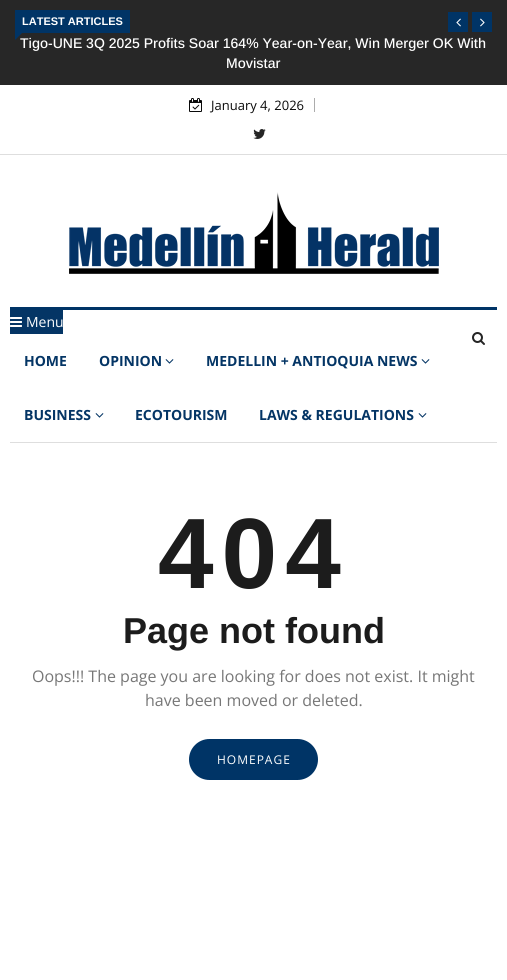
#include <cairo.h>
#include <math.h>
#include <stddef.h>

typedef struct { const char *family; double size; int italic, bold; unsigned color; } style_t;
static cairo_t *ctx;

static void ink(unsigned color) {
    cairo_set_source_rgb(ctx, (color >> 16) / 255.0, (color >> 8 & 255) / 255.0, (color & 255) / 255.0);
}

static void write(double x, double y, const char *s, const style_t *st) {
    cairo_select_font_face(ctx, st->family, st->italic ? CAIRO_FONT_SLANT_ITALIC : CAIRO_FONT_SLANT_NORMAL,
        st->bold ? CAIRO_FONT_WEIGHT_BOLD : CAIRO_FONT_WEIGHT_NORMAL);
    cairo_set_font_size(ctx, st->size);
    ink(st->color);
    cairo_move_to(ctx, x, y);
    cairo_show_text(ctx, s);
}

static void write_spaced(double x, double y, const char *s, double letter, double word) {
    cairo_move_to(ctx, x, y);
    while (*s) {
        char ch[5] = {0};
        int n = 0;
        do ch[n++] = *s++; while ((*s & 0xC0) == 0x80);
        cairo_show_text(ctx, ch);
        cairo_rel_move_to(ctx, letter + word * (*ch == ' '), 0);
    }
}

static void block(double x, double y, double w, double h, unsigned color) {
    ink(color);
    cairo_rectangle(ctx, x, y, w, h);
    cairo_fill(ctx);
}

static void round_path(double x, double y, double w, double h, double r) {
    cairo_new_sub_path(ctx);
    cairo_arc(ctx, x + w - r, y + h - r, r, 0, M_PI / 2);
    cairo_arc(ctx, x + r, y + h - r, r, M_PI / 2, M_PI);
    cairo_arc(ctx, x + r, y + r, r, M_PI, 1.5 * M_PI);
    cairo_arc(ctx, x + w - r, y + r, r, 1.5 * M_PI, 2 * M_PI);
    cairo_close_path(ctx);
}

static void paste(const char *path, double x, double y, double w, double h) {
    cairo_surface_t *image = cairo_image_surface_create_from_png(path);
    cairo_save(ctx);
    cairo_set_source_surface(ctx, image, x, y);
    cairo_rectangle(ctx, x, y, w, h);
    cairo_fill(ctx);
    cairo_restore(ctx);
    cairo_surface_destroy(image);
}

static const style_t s1 = {"Arimo", 11, 0, 1, 0xffffff};
static const style_t s2 = {"Arimo Medium", 14, 0, 0, 0xffffff};
static const style_t s3 = {"Open Sans", 13, 0, 0, 0x0a0a0a};
static const style_t s4 = {"Open Sans", 14, 0, 0, 0xffffff};
static const style_t s5 = {"Open Sans", 14, 0, 1, 0x043565};
static const style_t s6 = {"Arimo", 36, 0, 1, 0x1c1c1c};
static const style_t s7 = {"Open Sans", 16, 0, 0, 0x777777};

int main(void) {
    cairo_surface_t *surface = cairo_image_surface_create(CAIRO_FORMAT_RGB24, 507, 980);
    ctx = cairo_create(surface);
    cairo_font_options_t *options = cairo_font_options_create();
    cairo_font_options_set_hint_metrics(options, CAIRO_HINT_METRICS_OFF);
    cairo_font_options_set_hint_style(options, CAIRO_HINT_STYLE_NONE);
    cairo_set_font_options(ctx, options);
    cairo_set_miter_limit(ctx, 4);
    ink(0xffffff);
    cairo_paint(ctx);
    block(0, 0, 507, 85, 0x272727);
    block(15, 10, 115, 23, 0x003466);
    write(22, 25, "LATEST ARTICLES", &s1);
    ink(0x003466);
    cairo_new_path(ctx);
    cairo_move_to(ctx, 15, 33);
    cairo_line_to(ctx, 22, 33);
    cairo_line_to(ctx, 15, 40);
    cairo_close_path(ctx);
    cairo_fill(ctx);
    block(448, 12, 20, 20, 0x003466);
    paste("pic1.png", 456, 18, 5, 9);
    block(472, 12, 20, 20, 0x003466);
    paste("pic2.png", 480, 18, 5, 9);
    write(20, 48, "Tigo-UNE 3Q 2025 Profits Soar 164% Year-on-Year, Win Merger OK With", &s2);
    write(226, 68, "Movistar", &s2);
    block(0, 154, 507, 1, 0xdedede);
    block(314, 98, 1, 14, 0xacacac);
    paste("pic3.png", 189, 98, 13, 14);
    write(211, 110, "January 4, 2026", &s3);
    paste("pic4.png", 253, 129, 13, 10);
    paste("pic5.png", 69, 192, 370, 82);
    block(10, 307, 487, 3, 0x003466);
    block(10, 442, 487, 1, 0xdedede);
    block(10, 310, 53, 24, 0x043565);
    paste("pic6.png", 10, 317, 12, 10);
    write(26, 327, "Menu", &s4);
    write(24, 366, "HOME", &s5);
    write(99, 366, "OPINION", &s5);
    paste("pic7.png", 165, 359, 9, 5);
    write(206, 366, "MEDELLIN + ANTIOQUIA NEWS", &s5);
    paste("pic7.png", 421, 359, 9, 5);
    write(24, 420, "BUSINESS", &s5);
    paste("pic7.png", 95, 413, 9, 5);
    write(135, 420, "ECOTOURISM", &s5);
    write(259, 420, "LAWS & REGULATIONS", &s5);
    paste("pic7.png", 418, 413, 9, 5);
    paste("pic8.png", 472, 332, 13, 13);
    cairo_select_font_face(ctx, "Arimo", CAIRO_FONT_SLANT_NORMAL, CAIRO_FONT_WEIGHT_BOLD);
    cairo_set_font_size(ctx, 100);
    ink(0x1c1c1c);
    write_spaced(158, 588, "404", 8, 0);
    write(123, 643, "Page not found", &s6);
    write(32, 682, "Oops!!! The page you are looking for does not exist. It might", &s7);
    write(145, 706, "have been moved or deleted.", &s7);
    ink(0x003466);
    round_path(189, 739, 129, 41, 20.5);
    cairo_fill(ctx);
    cairo_set_font_size(ctx, 12);
    ink(0xffffff);
    write_spaced(217, 764, "HOMEPAGE", 1, 0);
    cairo_surface_write_to_png(surface, "screenshot.png");
    cairo_font_options_destroy(options);
    cairo_destroy(ctx);
    cairo_surface_destroy(surface);
    return 0;
}
